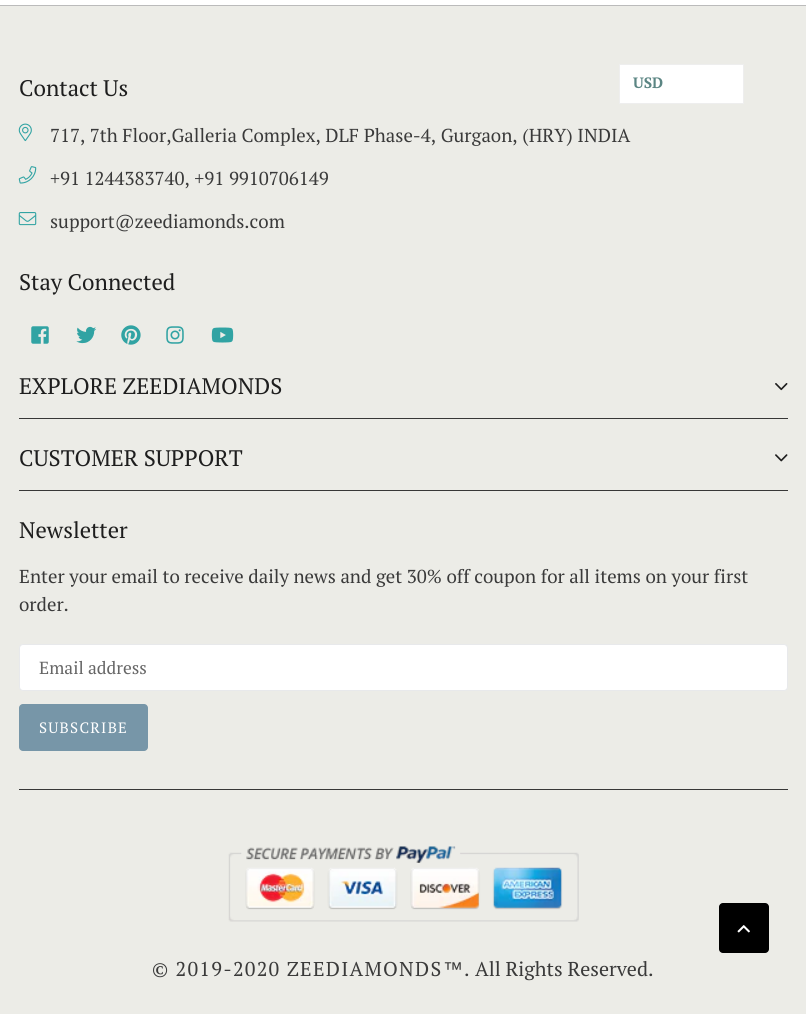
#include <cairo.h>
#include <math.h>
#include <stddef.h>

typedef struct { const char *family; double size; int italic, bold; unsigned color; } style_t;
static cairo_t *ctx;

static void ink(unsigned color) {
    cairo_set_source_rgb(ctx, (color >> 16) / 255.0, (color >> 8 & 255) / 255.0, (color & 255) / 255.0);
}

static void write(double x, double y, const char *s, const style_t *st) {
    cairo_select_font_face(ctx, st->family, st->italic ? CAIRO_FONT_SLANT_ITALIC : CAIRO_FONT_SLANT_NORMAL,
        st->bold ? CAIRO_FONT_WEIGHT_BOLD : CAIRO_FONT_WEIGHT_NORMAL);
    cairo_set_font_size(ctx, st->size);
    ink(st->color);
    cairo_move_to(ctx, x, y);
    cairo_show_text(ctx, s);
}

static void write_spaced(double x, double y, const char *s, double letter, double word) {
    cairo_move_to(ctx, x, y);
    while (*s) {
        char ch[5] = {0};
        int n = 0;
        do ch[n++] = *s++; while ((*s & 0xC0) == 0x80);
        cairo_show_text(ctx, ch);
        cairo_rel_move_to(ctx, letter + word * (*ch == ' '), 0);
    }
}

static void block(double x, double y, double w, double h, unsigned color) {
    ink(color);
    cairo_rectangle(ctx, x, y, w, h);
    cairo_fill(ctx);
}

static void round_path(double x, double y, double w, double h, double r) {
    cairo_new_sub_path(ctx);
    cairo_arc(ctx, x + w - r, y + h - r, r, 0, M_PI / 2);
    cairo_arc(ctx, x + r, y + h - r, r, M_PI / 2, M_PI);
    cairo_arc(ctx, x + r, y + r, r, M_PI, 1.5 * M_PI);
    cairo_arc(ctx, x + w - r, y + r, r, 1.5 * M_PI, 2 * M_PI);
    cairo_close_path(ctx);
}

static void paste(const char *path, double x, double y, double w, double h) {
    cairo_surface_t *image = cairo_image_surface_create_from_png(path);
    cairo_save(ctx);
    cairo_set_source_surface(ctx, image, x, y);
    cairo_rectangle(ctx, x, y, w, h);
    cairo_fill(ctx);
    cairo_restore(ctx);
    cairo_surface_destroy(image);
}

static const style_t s1 = {"PT Serif", 15, 0, 1, 0x5b8583};
static const style_t s2 = {"PT Serif", 22.5, 0, 0, 0x1e1e1e};
static const style_t s3 = {"PT Serif", 18.75, 0, 0, 0x3a3a3a};
static const style_t s4 = {"PT Serif", 17.5, 0, 0, 0x666666};
static const style_t s5 = {"PT Serif", 20, 0, 0, 0x3a3a3a};

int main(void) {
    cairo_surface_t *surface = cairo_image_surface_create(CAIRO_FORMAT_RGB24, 806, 1014);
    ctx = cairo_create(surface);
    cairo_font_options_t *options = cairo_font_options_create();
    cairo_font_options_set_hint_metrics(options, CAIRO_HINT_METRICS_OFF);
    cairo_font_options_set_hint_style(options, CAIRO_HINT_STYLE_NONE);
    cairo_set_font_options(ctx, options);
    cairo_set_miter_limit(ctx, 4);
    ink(0xffffff);
    cairo_paint(ctx);
    block(0, 6, 806, 1008, 0xecece7);
    ink(0xffffff);
    cairo_rectangle(ctx, 619.5, 64.5, 124, 39);
    cairo_fill_preserve(ctx);
    ink(0xeeeeee);
    cairo_set_line_width(ctx, 1);
    cairo_stroke(ctx);
    write(633, 88, "USD", &s1);
    block(0, 5, 806, 1, 0xbbbbbb);
    write(19, 96, "Contact Us", &s2);
    paste("pic1.png", 18, 123, 14, 19);
    write(50, 142, "717, 7th Floor,Galleria Complex, DLF Phase-4, Gurgaon, (HRY) INDIA", &s3);
    paste("pic2.png", 18, 166, 19, 18);
    write(50, 185, "+91 1244383740, +91 9910706149", &s3);
    paste("pic3.png", 18, 212, 19, 14);
    write(50, 228, "support@zeediamonds.com", &s3);
    write(19, 290, "Stay Connected", &s2);
    paste("pic4.png", 31, 326, 18, 18);
    paste("pic5.png", 76, 326, 21, 18);
    paste("pic6.png", 121, 325, 20, 20);
    paste("pic7.png", 166, 326, 18, 18);
    paste("pic8.png", 211, 327, 23, 16);
    write(19, 394, "EXPLORE ZEEDIAMONDS", &s2);
    paste("pic9.png", 775, 383, 13, 8);
    block(19, 418, 769, 1, 0x373737);
    write(19, 466, "CUSTOMER SUPPORT", &s2);
    paste("pic10.png", 775, 454, 13, 8);
    block(19, 490, 769, 1, 0x373737);
    write(19, 538, "Newsletter", &s2);
    write(19, 583, "Enter your email to receive daily news and get 30% off coupon for all items on your first", &s3);
    write(19, 611, "order.", &s3);
    ink(0xffffff);
    round_path(19.5, 644.5, 768, 46, 3.5);
    cairo_fill_preserve(ctx);
    ink(0xe8e9eb);
    cairo_stroke(ctx);
    write(39, 674, "Email address", &s4);
    ink(0x7796a8);
    round_path(19, 704, 129, 47, 4);
    cairo_fill(ctx);
    cairo_set_font_size(ctx, 15);
    ink(0xffffff);
    write_spaced(39, 733, "SUBSCRIBE", 1.25, 0);
    block(19, 789, 769, 1, 0x373737);
    paste("pic11.png", 228, 846, 351, 76);
    cairo_set_font_size(ctx, 20);
    ink(0x3a3a3a);
    write_spaced(152, 976, "© 2019-2020 ZEEDIAMONDS", 1.25, 0);
    cairo_select_font_face(ctx, "Liberation Sans", CAIRO_FONT_SLANT_NORMAL, CAIRO_FONT_WEIGHT_NORMAL);
    write_spaced(443, 976, "™", 1.25, 0);
    write(475, 976, "All Rights Reserved.", &s5);
    write_spaced(464, 976, ".", 1.25, 0);
    ink(0x000000);
    round_path(719, 903, 50, 50, 4);
    cairo_fill(ctx);
    paste("pic12.png", 737, 925, 13, 8);
    cairo_surface_write_to_png(surface, "screenshot.png");
    cairo_font_options_destroy(options);
    cairo_destroy(ctx);
    cairo_surface_destroy(surface);
    return 0;
}
